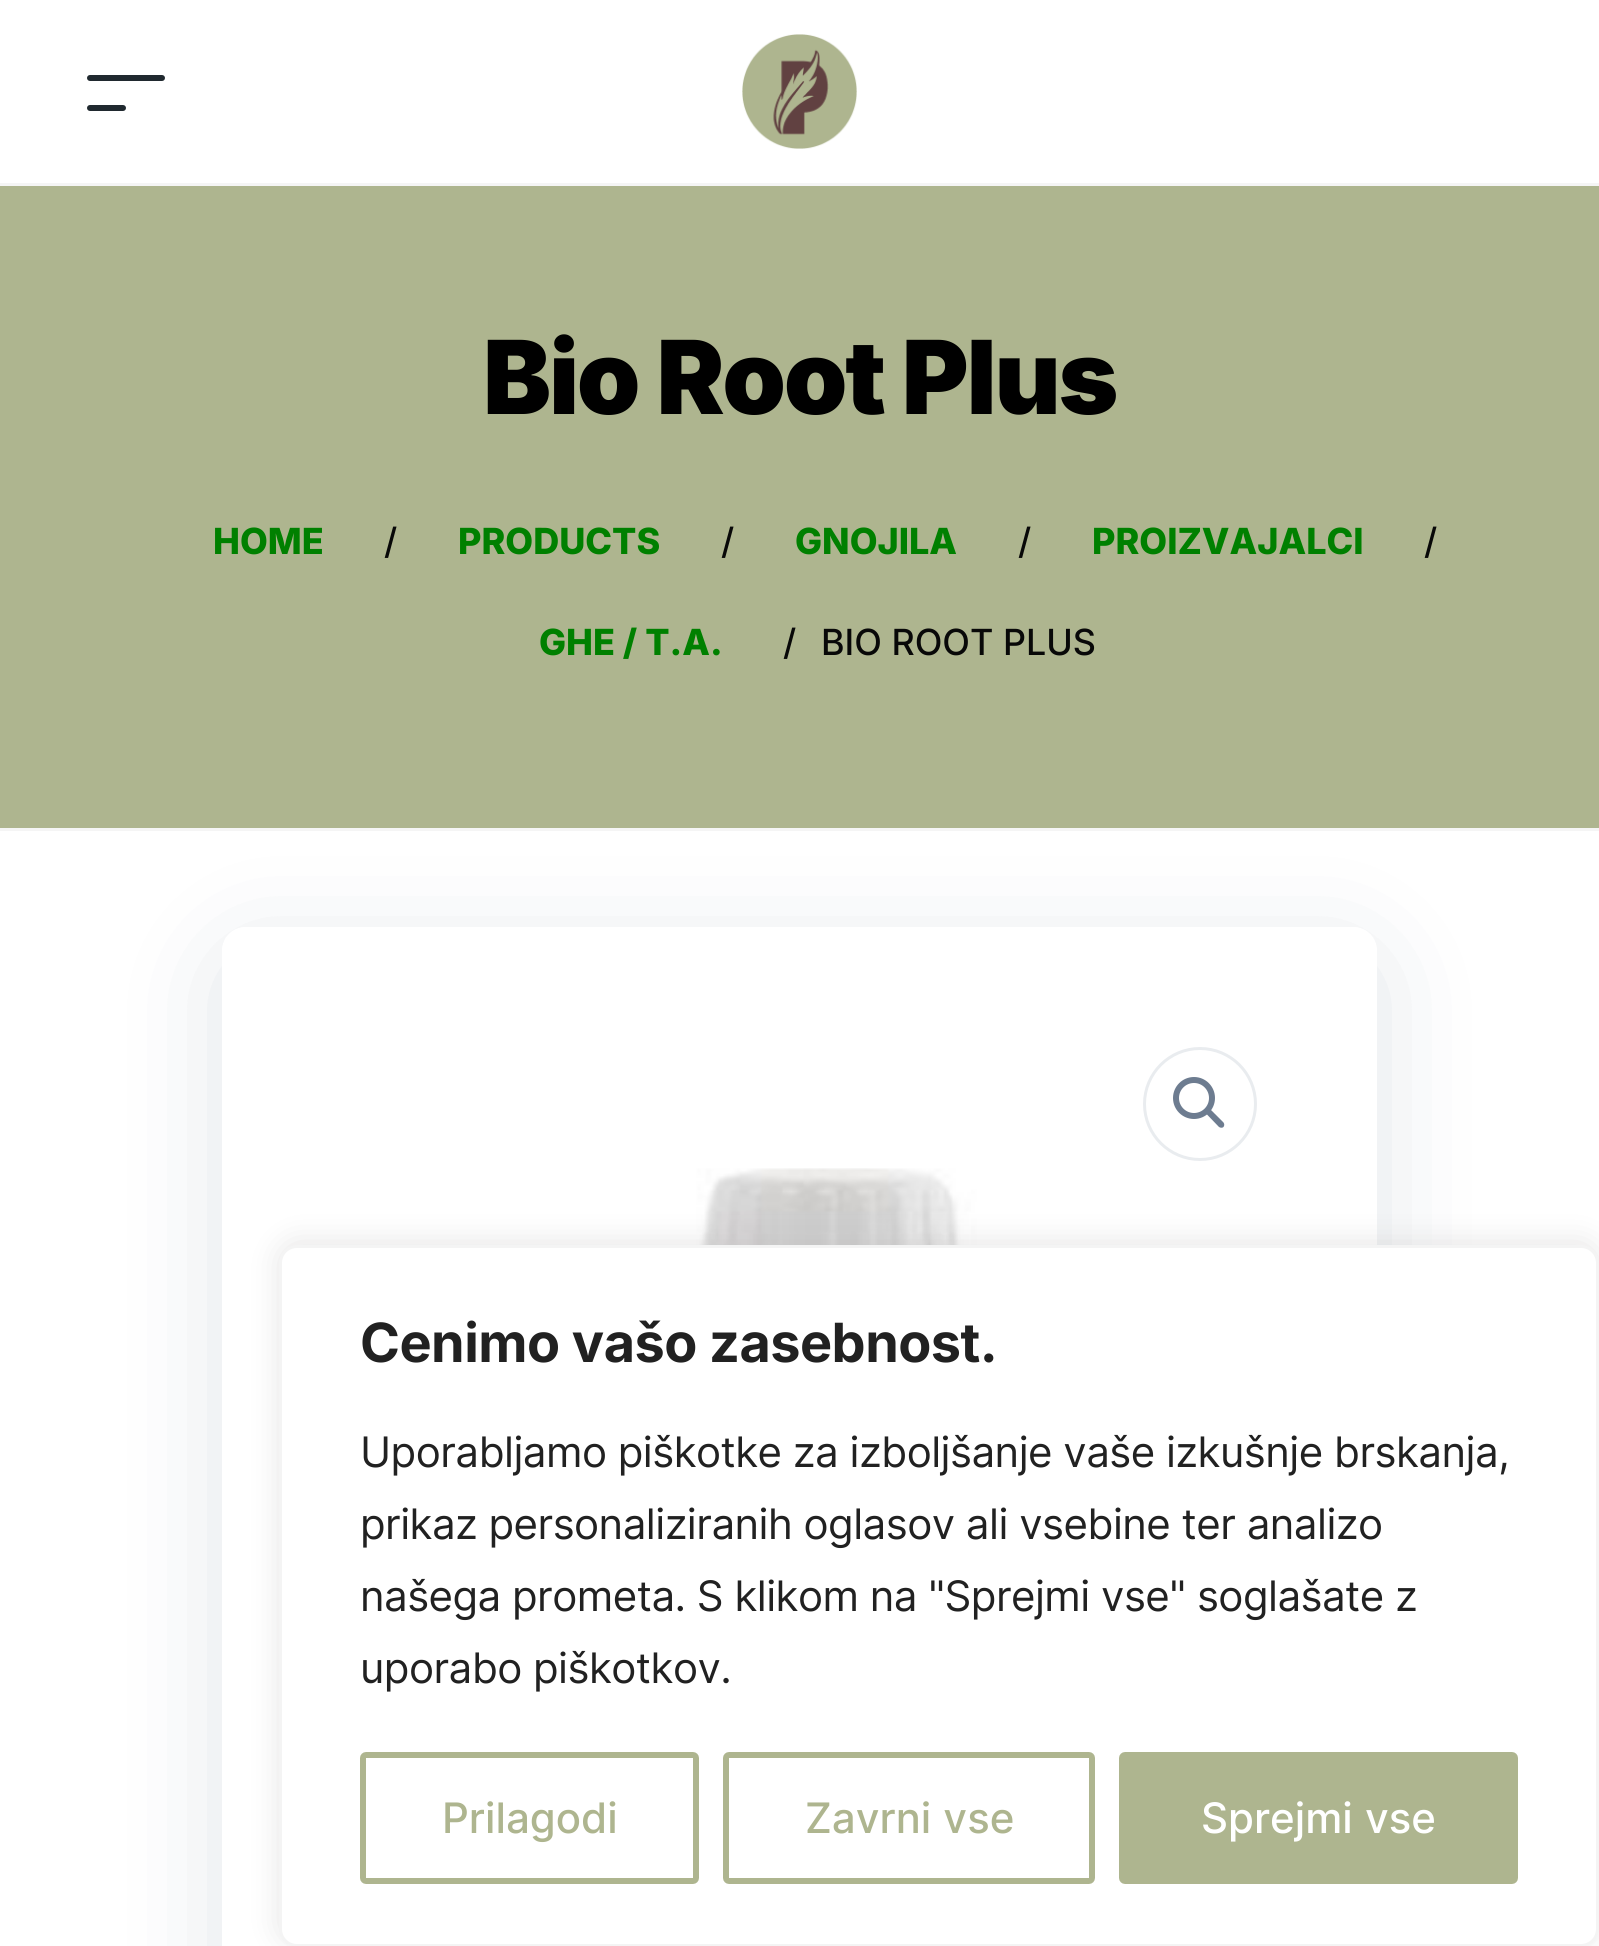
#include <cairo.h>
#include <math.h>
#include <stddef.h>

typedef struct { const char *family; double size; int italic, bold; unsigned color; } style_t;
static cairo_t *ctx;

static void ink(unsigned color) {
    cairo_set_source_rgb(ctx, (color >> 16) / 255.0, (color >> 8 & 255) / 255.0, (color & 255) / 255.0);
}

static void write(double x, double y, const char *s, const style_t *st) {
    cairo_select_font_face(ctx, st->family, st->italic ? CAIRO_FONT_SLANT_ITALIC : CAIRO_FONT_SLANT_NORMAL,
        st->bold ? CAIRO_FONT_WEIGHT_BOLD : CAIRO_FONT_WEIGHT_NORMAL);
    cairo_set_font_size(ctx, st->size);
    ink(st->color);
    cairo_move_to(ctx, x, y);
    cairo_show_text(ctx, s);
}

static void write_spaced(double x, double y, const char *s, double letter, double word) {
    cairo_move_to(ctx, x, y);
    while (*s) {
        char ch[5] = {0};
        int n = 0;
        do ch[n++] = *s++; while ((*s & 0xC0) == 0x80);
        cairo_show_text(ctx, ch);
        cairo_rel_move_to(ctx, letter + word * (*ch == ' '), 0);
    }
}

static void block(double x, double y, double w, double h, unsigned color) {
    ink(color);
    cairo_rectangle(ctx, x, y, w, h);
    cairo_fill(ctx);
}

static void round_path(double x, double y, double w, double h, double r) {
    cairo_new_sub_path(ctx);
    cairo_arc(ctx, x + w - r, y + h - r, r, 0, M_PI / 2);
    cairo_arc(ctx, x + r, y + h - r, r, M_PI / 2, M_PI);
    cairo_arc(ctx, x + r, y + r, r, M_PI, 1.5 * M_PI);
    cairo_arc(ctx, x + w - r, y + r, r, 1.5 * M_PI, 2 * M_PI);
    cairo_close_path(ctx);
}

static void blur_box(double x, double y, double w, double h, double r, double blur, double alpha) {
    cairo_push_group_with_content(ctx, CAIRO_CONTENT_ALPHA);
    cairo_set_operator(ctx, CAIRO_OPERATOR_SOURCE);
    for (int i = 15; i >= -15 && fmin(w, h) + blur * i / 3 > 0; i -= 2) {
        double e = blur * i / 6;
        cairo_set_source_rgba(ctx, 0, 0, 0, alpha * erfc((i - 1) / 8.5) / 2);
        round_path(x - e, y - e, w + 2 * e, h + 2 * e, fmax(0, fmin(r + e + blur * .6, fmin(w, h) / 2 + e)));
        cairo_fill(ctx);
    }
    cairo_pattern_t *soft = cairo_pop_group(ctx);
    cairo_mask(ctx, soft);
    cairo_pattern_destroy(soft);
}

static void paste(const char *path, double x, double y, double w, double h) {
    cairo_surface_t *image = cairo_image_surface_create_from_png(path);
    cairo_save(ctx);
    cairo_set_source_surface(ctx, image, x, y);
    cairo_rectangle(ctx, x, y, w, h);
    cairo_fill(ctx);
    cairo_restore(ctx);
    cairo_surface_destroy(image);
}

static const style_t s1 = {"Inter ExtraBold", 36, 0, 0, 0x008000};
static const style_t s2 = {"Inter Medium", 36, 0, 0, 0x080808};
static const style_t s3 = {"Inter Medium", 42, 0, 0, 0xaeb58f};

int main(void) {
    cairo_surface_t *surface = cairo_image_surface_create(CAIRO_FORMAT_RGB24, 1599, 1946);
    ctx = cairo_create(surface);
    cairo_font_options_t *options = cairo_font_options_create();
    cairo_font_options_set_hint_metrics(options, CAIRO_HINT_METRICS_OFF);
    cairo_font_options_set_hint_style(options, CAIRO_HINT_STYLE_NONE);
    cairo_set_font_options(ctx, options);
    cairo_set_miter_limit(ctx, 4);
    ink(0xffffff);
    cairo_paint(ctx);
    block(0, 183, 1599, 3, 0xf5f5f5);
    ink(0x20292f);
    round_path(87, 75, 78, 6, 3);
    cairo_fill(ctx);
    round_path(87, 105, 39, 6, 3);
    cairo_fill(ctx);
    paste("pic1.png", 742, 34, 115, 115);
    block(0, 828, 1599, 3, 0xf5f5f5);
    block(0, 186, 1599, 642, 0xaeb58f);
    cairo_select_font_face(ctx, "Inter Black", CAIRO_FONT_SLANT_NORMAL, CAIRO_FONT_WEIGHT_NORMAL);
    cairo_set_font_size(ctx, 102);
    ink(0x000000);
    write_spaced(483, 414, "Bio Root Plus", -2.25, 0);
    write(213, 554, "HOME", &s1);
    write(384, 554, "/", &s2);
    write(458, 554, "PRODUCTS", &s1);
    write(721, 554, "/", &s2);
    write(795, 554, "GNOJILA", &s1);
    write(1018, 554, "/", &s2);
    write(1092, 554, "PROIZVAJALCI", &s1);
    write(1424, 554, "/", &s2);
    write(539, 655, "GHE / T.A.", &s1);
    write(783, 655, "/", &s2);
    write(821, 655, "BIO ROOT PLUS", &s2);
    cairo_save(ctx);
    cairo_set_fill_rule(ctx, CAIRO_FILL_RULE_EVEN_ODD);
    cairo_new_path(ctx);
    cairo_move_to(ctx, 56, 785);
    cairo_line_to(ctx, 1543, 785);
    cairo_line_to(ctx, 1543, 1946);
    cairo_line_to(ctx, 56, 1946);
    cairo_close_path(ctx);
    cairo_move_to(ctx, 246, 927);
    cairo_line_to(ctx, 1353, 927);
    cairo_curve_to(ctx, 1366.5, 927, 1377, 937.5, 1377, 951);
    cairo_line_to(ctx, 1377, 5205);
    cairo_curve_to(ctx, 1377, 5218.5, 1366.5, 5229, 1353, 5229);
    cairo_line_to(ctx, 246, 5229);
    cairo_curve_to(ctx, 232.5, 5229, 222, 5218.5, 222, 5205);
    cairo_line_to(ctx, 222, 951);
    cairo_curve_to(ctx, 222, 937.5, 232.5, 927, 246, 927);
    cairo_close_path(ctx);
    cairo_clip(ctx);
    ink(0x091f43);
    blur_box(237, 966, 1125, 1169, 9, 60, 0.15);
    cairo_restore(ctx);
    cairo_arc(ctx, 1200, 1104, 55.5, 0, 2 * M_PI);
    ink(0xe9ecef);
    cairo_set_line_width(ctx, 3);
    cairo_stroke(ctx);
    cairo_arc(ctx, 1194, 1098, 18, 0, 2 * M_PI);
    ink(0x6d7c90);
    cairo_set_line_width(ctx, 6);
    cairo_stroke(ctx);
    cairo_new_path(ctx);
    cairo_move_to(ctx, 1206.5, 1110);
    cairo_curve_to(ctx, 1207.5, 1108.5, 1209.5, 1108.5, 1211, 1110);
    cairo_line_to(ctx, 1223.5, 1122.5);
    cairo_curve_to(ctx, 1224.5, 1124, 1224.5, 1125.5, 1223.5, 1127);
    cairo_curve_to(ctx, 1222.5, 1128, 1220.5, 1128, 1219, 1127);
    cairo_line_to(ctx, 1206.5, 1114);
    cairo_curve_to(ctx, 1205.5, 1113, 1205.5, 1111, 1206.5, 1110);
    cairo_close_path(ctx);
    cairo_fill(ctx);
    paste("pic2.png", 460, 1168, 747, 77);
    ink(0xacabab);
    blur_box(279, 1242, 1320, 702, 18, 15, 0.3);
    ink(0xffffff);
    round_path(280.5, 1246.5, 1317, 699, 16.5);
    cairo_fill_preserve(ctx);
    ink(0xf4f4f4);
    cairo_set_line_width(ctx, 3);
    cairo_stroke(ctx);
    cairo_select_font_face(ctx, "Inter", CAIRO_FONT_SLANT_NORMAL, CAIRO_FONT_WEIGHT_BOLD);
    cairo_set_font_size(ctx, 54);
    ink(0x212121);
    write_spaced(360, 1362, "Cenimo vašo zasebnost.", -0.53, 0);
    cairo_select_font_face(ctx, "Inter", CAIRO_FONT_SLANT_NORMAL, CAIRO_FONT_WEIGHT_NORMAL);
    cairo_set_font_size(ctx, 42);
    write_spaced(360, 1467, "Uporabljamo piškotke za izboljšanje vaše izkušnje brskanja,", -0.53, 0);
    write_spaced(360, 1539, "prikaz personaliziranih oglasov ali vsebine ter analizo", -0.53, 0);
    write_spaced(360, 1611, "našega prometa. S klikom na \"Sprejmi vse\" soglašate z", -0.53, 0);
    write_spaced(360, 1683, "uporabo piškotkov.", -0.53, 0);
    round_path(363, 1755, 333, 126, 3);
    ink(0xaeb58f);
    cairo_set_line_width(ctx, 6);
    cairo_stroke(ctx);
    write(442, 1833, "Prilagodi", &s3);
    round_path(726, 1755, 366, 126, 3);
    cairo_stroke(ctx);
    write_spaced(805, 1833, "Zavrni vse", 0, 1);
    round_path(1122, 1755, 393, 126, 3);
    cairo_fill_preserve(ctx);
    cairo_stroke(ctx);
    ink(0xffffff);
    write_spaced(1201, 1833, "Sprejmi vse", 0, 1);
    cairo_surface_write_to_png(surface, "screenshot.png");
    cairo_font_options_destroy(options);
    cairo_destroy(ctx);
    cairo_surface_destroy(surface);
    return 0;
}
